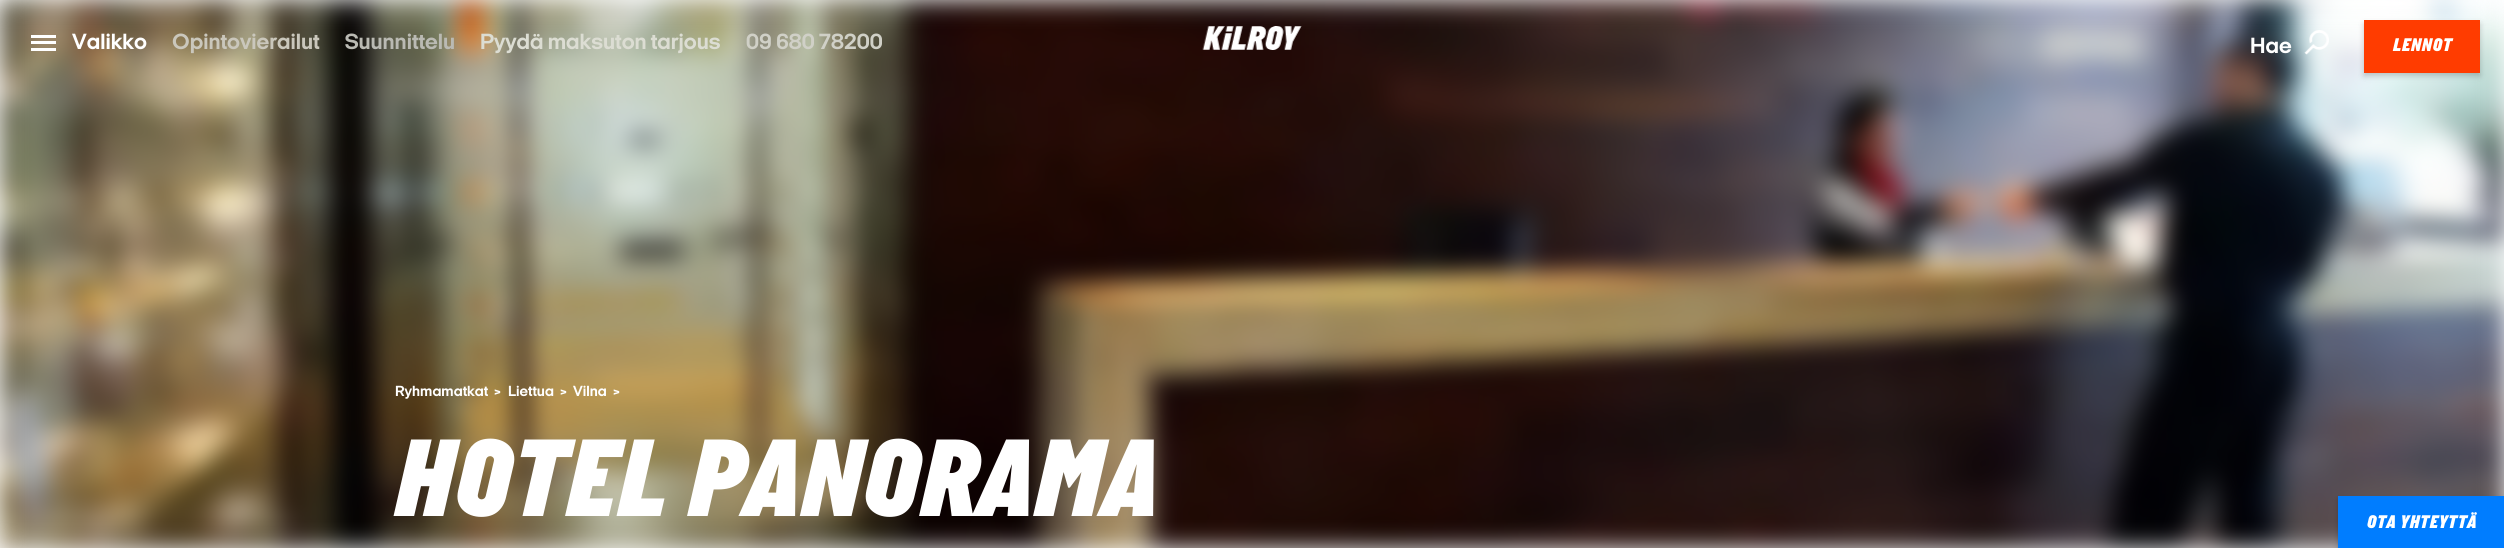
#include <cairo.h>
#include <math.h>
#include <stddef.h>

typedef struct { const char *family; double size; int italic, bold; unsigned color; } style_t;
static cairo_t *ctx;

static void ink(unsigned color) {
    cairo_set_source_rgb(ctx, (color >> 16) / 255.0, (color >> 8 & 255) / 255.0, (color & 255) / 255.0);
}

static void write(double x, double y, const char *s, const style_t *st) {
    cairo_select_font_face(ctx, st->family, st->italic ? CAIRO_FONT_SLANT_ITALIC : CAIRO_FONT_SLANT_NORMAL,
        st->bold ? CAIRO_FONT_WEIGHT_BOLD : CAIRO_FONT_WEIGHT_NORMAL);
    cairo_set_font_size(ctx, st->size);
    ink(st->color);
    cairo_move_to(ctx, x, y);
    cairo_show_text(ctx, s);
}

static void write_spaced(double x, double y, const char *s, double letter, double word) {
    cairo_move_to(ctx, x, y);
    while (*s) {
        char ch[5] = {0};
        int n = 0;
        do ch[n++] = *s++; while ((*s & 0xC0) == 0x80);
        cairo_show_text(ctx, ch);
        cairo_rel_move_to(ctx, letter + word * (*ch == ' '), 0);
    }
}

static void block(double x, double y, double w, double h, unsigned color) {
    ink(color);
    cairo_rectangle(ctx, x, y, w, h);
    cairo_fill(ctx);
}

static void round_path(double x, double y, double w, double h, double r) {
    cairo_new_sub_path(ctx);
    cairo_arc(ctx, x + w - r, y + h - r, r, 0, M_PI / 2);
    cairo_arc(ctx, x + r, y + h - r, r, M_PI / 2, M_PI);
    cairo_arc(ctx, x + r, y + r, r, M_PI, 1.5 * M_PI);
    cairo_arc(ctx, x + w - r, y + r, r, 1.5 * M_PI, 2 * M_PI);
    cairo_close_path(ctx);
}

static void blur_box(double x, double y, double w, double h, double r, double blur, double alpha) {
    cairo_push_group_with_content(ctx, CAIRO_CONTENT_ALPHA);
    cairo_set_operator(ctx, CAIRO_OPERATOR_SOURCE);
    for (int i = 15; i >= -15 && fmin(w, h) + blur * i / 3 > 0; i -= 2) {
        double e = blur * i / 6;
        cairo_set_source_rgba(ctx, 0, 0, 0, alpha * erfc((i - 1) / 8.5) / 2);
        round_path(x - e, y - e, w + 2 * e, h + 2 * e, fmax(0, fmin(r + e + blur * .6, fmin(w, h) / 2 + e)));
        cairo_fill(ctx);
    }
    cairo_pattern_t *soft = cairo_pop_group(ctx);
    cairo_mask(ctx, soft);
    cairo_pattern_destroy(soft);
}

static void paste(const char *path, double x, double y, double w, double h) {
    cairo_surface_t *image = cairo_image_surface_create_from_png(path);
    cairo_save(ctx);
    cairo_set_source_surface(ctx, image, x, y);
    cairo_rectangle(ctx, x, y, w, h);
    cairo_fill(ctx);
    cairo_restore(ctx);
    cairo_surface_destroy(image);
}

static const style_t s1 = {"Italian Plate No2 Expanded", 22.5, 0, 1, 0xffffff};
static const style_t s2 = {"Italian Plate No2 Expanded", 22.5, 0, 1, 0xcac7bc};
static const style_t s3 = {"Italian Plate No2 Expanded", 22.5, 0, 1, 0xbabab3};
static const style_t s4 = {"Italian Plate No2 Expanded", 22.5, 0, 1, 0xdcddd3};
static const style_t s5 = {"Italian Plate No2 Expanded", 22.5, 0, 1, 0xd0d0c7};
static const style_t s6 = {"Italian Plate No2 Expanded", 15, 0, 1, 0xffffff};
static const style_t s7 = {"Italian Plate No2 Black", 112.5, 1, 0, 0xffffff};

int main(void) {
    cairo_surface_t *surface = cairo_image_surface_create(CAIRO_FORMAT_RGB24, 2504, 548);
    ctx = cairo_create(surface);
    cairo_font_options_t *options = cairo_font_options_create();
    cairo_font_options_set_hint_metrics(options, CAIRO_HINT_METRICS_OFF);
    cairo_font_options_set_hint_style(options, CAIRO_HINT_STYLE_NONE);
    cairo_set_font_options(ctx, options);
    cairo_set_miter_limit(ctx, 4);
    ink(0xffffff);
    cairo_paint(ctx);
    paste("pic3.png", 0, 0, 2504, 548);
    block(31, 41, 25, 3, 0xffffff);
    block(31, 35, 25, 3, 0xffffff);
    block(31, 48, 25, 3, 0xffffff);
    write(72, 49, "Valikko", &s1);
    write(172, 49, "Opintovierailut", &s2);
    write(345, 49, "Suunnittelu", &s3);
    write(480, 49, "Pyydä maksuton tarjous", &s4);
    write(746, 49, "09 680 78200", &s5);
    paste("pic1.png", 1202, 26, 100, 24);
    write(2250, 53, "Hae", &s1);
    paste("pic2.png", 2304, 30, 25, 25);
    ink(0x000000);
    blur_box(2364, 24, 116, 52, 0, 3, 0.2);
    block(2364, 20, 116, 53, 0xff3c00);
    cairo_select_font_face(ctx, "Italian Plate No2 Black", CAIRO_FONT_SLANT_ITALIC, CAIRO_FONT_WEIGHT_NORMAL);
    cairo_set_font_size(ctx, 18.75);
    ink(0xffffff);
    write_spaced(2393, 51, "LENNOT", 0.5, 0);
    write(395, 396, "Ryhmamatkat", &s6);
    write(494, 396, ">", &s6);
    write(508, 396, "Liettua", &s6);
    write(560, 396, ">", &s6);
    write(573, 396, "Vilna", &s6);
    write(613, 396, ">", &s6);
    write(395, 516, "HOTEL PANORAMA", &s7);
    ink(0x000000);
    blur_box(2338, 500, 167, 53, 0, 3, 0.2);
    block(2338, 496, 166, 52, 0x007dff);
    cairo_set_font_size(ctx, 18.75);
    ink(0xffffff);
    write_spaced(2367, 528, "OTA YHTEYTTÄ", 0.5, 0);
    cairo_surface_write_to_png(surface, "screenshot.png");
    cairo_font_options_destroy(options);
    cairo_destroy(ctx);
    cairo_surface_destroy(surface);
    return 0;
}
